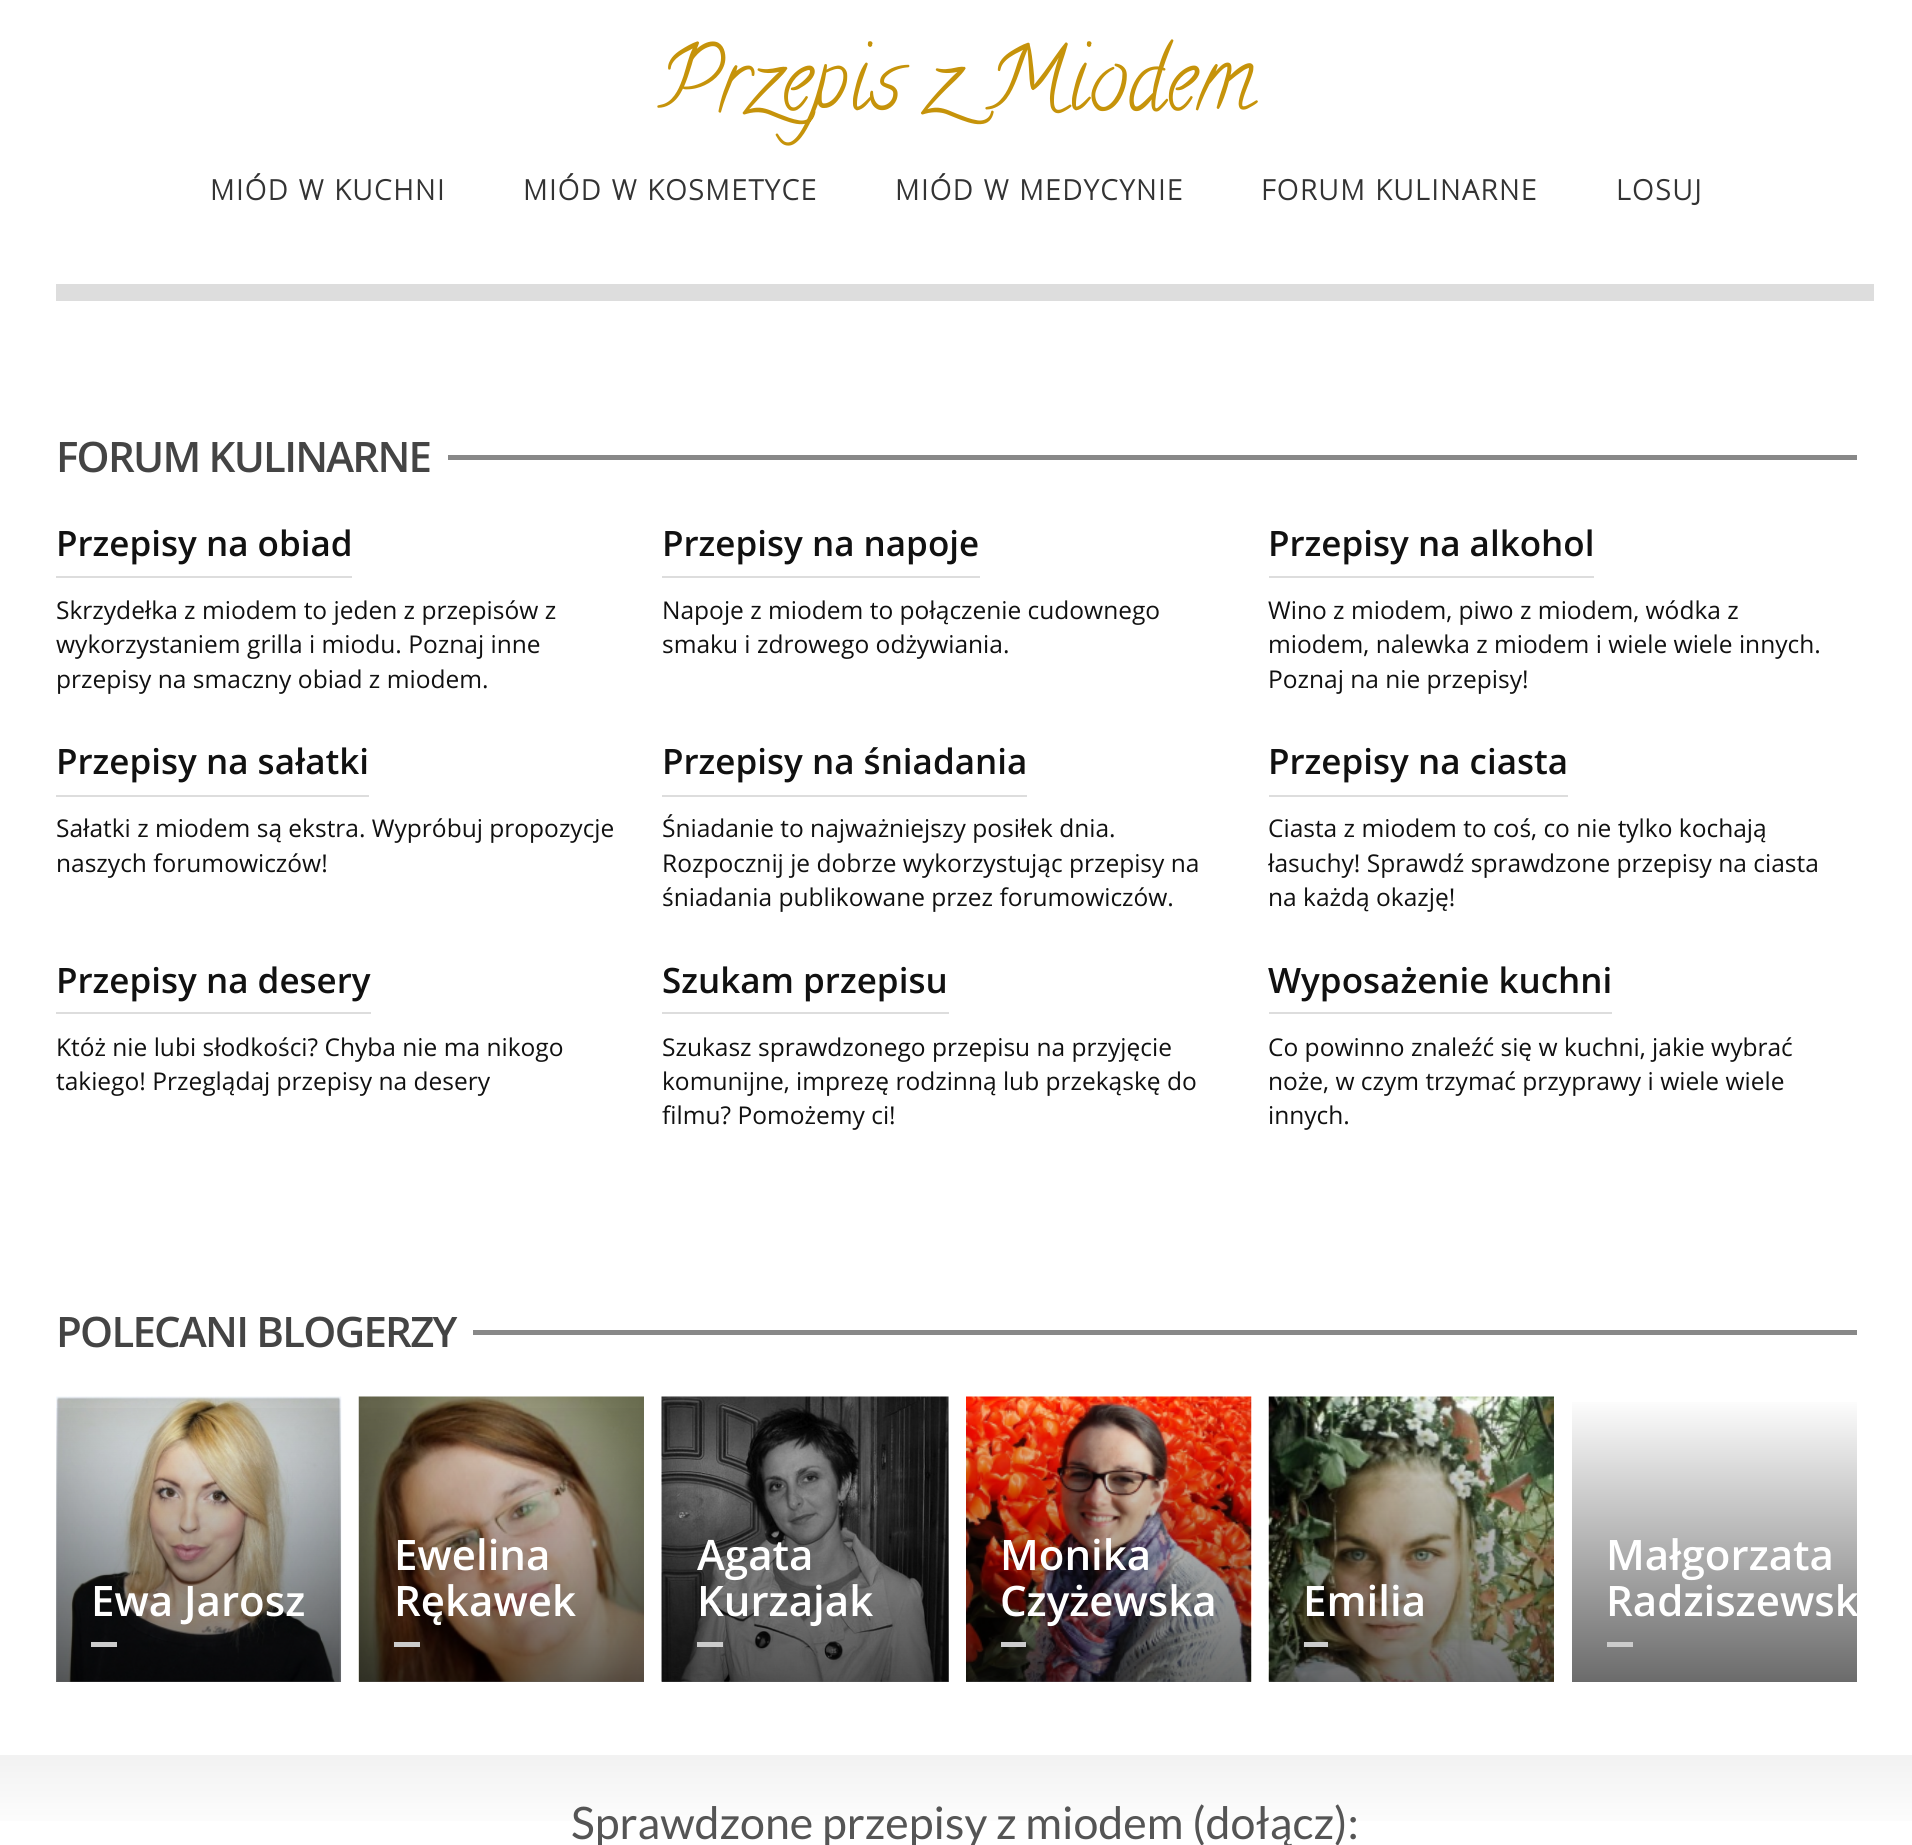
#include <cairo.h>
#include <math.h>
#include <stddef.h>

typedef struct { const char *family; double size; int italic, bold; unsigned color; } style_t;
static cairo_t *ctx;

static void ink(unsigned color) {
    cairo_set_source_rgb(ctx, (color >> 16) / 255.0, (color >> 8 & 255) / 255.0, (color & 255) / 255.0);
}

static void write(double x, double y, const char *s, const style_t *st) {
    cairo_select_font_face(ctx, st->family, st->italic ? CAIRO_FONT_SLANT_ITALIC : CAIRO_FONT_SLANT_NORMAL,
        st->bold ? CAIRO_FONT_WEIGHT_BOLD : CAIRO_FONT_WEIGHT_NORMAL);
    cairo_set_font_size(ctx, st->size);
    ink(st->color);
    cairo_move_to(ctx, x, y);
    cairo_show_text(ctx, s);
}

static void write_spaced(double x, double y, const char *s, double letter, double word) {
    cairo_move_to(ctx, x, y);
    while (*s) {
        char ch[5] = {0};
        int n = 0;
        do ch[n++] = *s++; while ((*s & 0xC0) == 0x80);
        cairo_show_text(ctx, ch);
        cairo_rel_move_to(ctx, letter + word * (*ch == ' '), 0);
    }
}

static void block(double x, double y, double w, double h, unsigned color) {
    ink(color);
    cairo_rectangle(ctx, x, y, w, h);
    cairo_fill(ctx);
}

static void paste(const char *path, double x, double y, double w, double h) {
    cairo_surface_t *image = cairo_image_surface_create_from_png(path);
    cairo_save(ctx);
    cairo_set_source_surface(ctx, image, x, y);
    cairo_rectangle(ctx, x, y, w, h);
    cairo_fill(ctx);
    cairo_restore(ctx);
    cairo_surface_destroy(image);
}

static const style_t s1 = {"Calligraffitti", 87.5, 0, 0, 0xc6930a};
static const style_t s2 = {"Open Sans SemiBold", 35, 0, 0, 0x111111};
static const style_t s3 = {"Open Sans", 24.5, 0, 0, 0x111111};
static const style_t s4 = {"Open Sans SemiBold", 42, 0, 0, 0xffffff};
static const style_t s5 = {"Lato", 44.75, 0, 0, 0x555555};

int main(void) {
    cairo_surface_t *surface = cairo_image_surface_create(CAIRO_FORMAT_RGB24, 1912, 1845);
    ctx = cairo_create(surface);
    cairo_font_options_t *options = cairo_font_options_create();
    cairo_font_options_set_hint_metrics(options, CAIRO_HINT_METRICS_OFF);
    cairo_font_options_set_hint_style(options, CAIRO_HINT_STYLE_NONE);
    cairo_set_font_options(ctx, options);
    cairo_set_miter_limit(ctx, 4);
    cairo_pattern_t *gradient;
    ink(0xffffff);
    cairo_paint(ctx);
    write(659, 107, "Przepis z Miodem", &s1);
    cairo_select_font_face(ctx, "Open Sans", CAIRO_FONT_SLANT_NORMAL, CAIRO_FONT_WEIGHT_BOLD);
    cairo_set_font_size(ctx, 28);
    ink(0x333333);
    write_spaced(210, 200, "MIÓD W KUCHNI", 1.75, 0);
    write_spaced(523, 200, "MIÓD W KOSMETYCE", 1.75, 0);
    write_spaced(895, 200, "MIÓD W MEDYCYNIE", 1.75, 0);
    write_spaced(1261, 200, "FORUM KULINARNE", 1.75, 0);
    write_spaced(1616, 200, "LOSUJ", 1.75, 0);
    block(56, 284, 1818, 17, 0xdddddd);
    cairo_select_font_face(ctx, "Open Sans SemiBold", CAIRO_FONT_SLANT_NORMAL, CAIRO_FONT_WEIGHT_NORMAL);
    cairo_set_font_size(ctx, 42);
    ink(0x444444);
    write_spaced(56, 472, "FORUM KULINARNE", -1.75, 0);
    block(448, 455, 1409, 5, 0x888888);
    write(56, 556, "Przepisy na obiad", &s2);
    block(56, 576, 296, 2, 0xdddddd);
    write(56, 619, "Skrzydełka z miodem to jeden z przepisów z", &s3);
    write(56, 653, "wykorzystaniem grilla i miodu. Poznaj inne", &s3);
    write(56, 688, "przepisy na smaczny obiad z miodem.", &s3);
    write(662, 556, "Przepisy na napoje", &s2);
    block(662, 576, 318, 2, 0xdddddd);
    write(662, 619, "Napoje z miodem to połączenie cudownego", &s3);
    write(662, 653, "smaku i zdrowego odżywiania.", &s3);
    write(1268, 556, "Przepisy na alkohol", &s2);
    block(1269, 576, 325, 2, 0xdddddd);
    write(1268, 619, "Wino z miodem, piwo z miodem, wódka z", &s3);
    write(1268, 653, "miodem, nalewka z miodem i wiele wiele innych.", &s3);
    write(1268, 688, "Poznaj na nie przepisy!", &s3);
    write(56, 774, "Przepisy na sałatki", &s2);
    block(56, 795, 313, 2, 0xdddddd);
    write(56, 837, "Sałatki z miodem są ekstra. Wypróbuj propozycje", &s3);
    write(56, 872, "naszych forumowiczów!", &s3);
    write(662, 774, "Przepisy na śniadania", &s2);
    block(662, 795, 365, 2, 0xdddddd);
    write(662, 837, "Śniadanie to najważniejszy posiłek dnia.", &s3);
    write(662, 872, "Rozpocznij je dobrze wykorzystując przepisy na", &s3);
    write(662, 906, "śniadania publikowane przez forumowiczów.", &s3);
    write(1268, 774, "Przepisy na ciasta", &s2);
    block(1269, 795, 299, 2, 0xdddddd);
    write(1268, 837, "Ciasta z miodem to coś, co nie tylko kochają", &s3);
    write(1268, 872, "łasuchy! Sprawdź sprawdzone przepisy na ciasta", &s3);
    write(1268, 906, "na każdą okazję!", &s3);
    write(56, 993, "Przepisy na desery", &s2);
    block(56, 1012, 315, 2, 0xdddddd);
    write(56, 1056, "Któż nie lubi słodkości? Chyba nie ma nikogo", &s3);
    write(56, 1090, "takiego! Przeglądaj przepisy na desery", &s3);
    write(662, 993, "Szukam przepisu", &s2);
    block(662, 1012, 287, 2, 0xdddddd);
    write(662, 1056, "Szukasz sprawdzonego przepisu na przyjęcie", &s3);
    write(662, 1090, "komunijne, imprezę rodzinną lub przekąskę do", &s3);
    write(662, 1124, "filmu? Pomożemy ci!", &s3);
    write(1268, 993, "Wyposażenie kuchni", &s2);
    block(1269, 1012, 343, 2, 0xdddddd);
    write(1268, 1056, "Co powinno znaleźć się w kuchni, jakie wybrać", &s3);
    write(1268, 1090, "noże, w czym trzymać przyprawy i wiele wiele", &s3);
    write(1268, 1124, "innych.", &s3);
    cairo_select_font_face(ctx, "Open Sans SemiBold", CAIRO_FONT_SLANT_NORMAL, CAIRO_FONT_WEIGHT_NORMAL);
    cairo_set_font_size(ctx, 42);
    ink(0x444444);
    write_spaced(56, 1347, "POLECANI BLOGERZY", -1.75, 0);
    block(473, 1330, 1384, 5, 0x888888);
    paste("pic1.png", 56, 1396, 286, 286);
    gradient = cairo_pattern_create_linear(199, 1397, 199, 1682);
    cairo_pattern_add_color_stop_rgba(gradient, 0, 0, 0, 0, 0);
    cairo_pattern_add_color_stop_rgba(gradient, 1, 0, 0, 0, 0.58);
    cairo_set_source(ctx, gradient);
    cairo_pattern_destroy(gradient);
    cairo_rectangle(ctx, 56, 1408, 285, 274);
    cairo_fill(ctx);
    write(91, 1616, "Ewa Jarosz", &s4);
    block(91, 1642, 26, 5, 0xcccccc);
    paste("pic2.png", 358, 1396, 286, 286);
    gradient = cairo_pattern_create_linear(501, 1397, 501, 1682);
    cairo_pattern_add_color_stop_rgba(gradient, 0, 0, 0, 0, 0);
    cairo_pattern_add_color_stop_rgba(gradient, 1, 0, 0, 0, 0.58);
    cairo_set_source(ctx, gradient);
    cairo_pattern_destroy(gradient);
    cairo_rectangle(ctx, 359, 1408, 285, 274);
    cairo_fill(ctx);
    write(394, 1570, "Ewelina", &s4);
    write(394, 1616, "Rękawek", &s4);
    block(394, 1642, 26, 5, 0xcccccc);
    paste("pic3.png", 661, 1396, 288, 286);
    gradient = cairo_pattern_create_linear(805, 1397, 805, 1682);
    cairo_pattern_add_color_stop_rgba(gradient, 0, 0, 0, 0, 0);
    cairo_pattern_add_color_stop_rgba(gradient, 1, 0, 0, 0, 0.58);
    cairo_set_source(ctx, gradient);
    cairo_pattern_destroy(gradient);
    cairo_rectangle(ctx, 662, 1408, 287, 274);
    cairo_fill(ctx);
    write(697, 1570, "Agata", &s4);
    write(697, 1616, "Kurzajak", &s4);
    block(697, 1642, 26, 5, 0xcccccc);
    paste("pic4.png", 966, 1396, 286, 286);
    gradient = cairo_pattern_create_linear(1109, 1397, 1109, 1682);
    cairo_pattern_add_color_stop_rgba(gradient, 0, 0, 0, 0, 0);
    cairo_pattern_add_color_stop_rgba(gradient, 1, 0, 0, 0, 0.58);
    cairo_set_source(ctx, gradient);
    cairo_pattern_destroy(gradient);
    cairo_rectangle(ctx, 966, 1408, 285, 274);
    cairo_fill(ctx);
    write(1000, 1570, "Monika", &s4);
    write(1000, 1616, "Czyżewska", &s4);
    block(1001, 1642, 25, 5, 0xcccccc);
    paste("pic5.png", 1268, 1396, 286, 286);
    gradient = cairo_pattern_create_linear(1411, 1397, 1411, 1682);
    cairo_pattern_add_color_stop_rgba(gradient, 0, 0, 0, 0, 0);
    cairo_pattern_add_color_stop_rgba(gradient, 1, 0, 0, 0, 0.58);
    cairo_set_source(ctx, gradient);
    cairo_pattern_destroy(gradient);
    cairo_rectangle(ctx, 1269, 1408, 285, 274);
    cairo_fill(ctx);
    write(1303, 1616, "Emilia", &s4);
    block(1304, 1642, 24, 5, 0xcccccc);
    gradient = cairo_pattern_create_linear(1714, 1397, 1714, 1682);
    cairo_pattern_add_color_stop_rgba(gradient, 0, 1, 1, 1, 1);
    cairo_pattern_add_color_stop_rgba(gradient, 1, 0.42, 0.42, 0.42, 1);
    cairo_set_source(ctx, gradient);
    cairo_pattern_destroy(gradient);
    cairo_rectangle(ctx, 1572, 1402, 285, 280);
    cairo_fill(ctx);
    write(1606, 1570, "Małgorzata", &s4);
    cairo_save(ctx);
    cairo_rectangle(ctx, 1572, 1397, 285, 285);
    cairo_clip(ctx);
    write(1606, 1616, "Radziszewsk", &s4);
    cairo_restore(ctx);
    block(1607, 1642, 26, 5, 0xcccccc);
    gradient = cairo_pattern_create_linear(956, 1755, 956, 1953);
    cairo_pattern_add_color_stop_rgba(gradient, 0.01, 0.949, 0.949, 0.949, 1);
    cairo_pattern_add_color_stop_rgba(gradient, 0.41, 1, 1, 1, 1);
    cairo_set_source(ctx, gradient);
    cairo_pattern_destroy(gradient);
    cairo_rectangle(ctx, 0, 1755, 1912, 66);
    cairo_fill(ctx);
    write(571, 1839, "Sprawdzone przepisy z miodem (dołącz):", &s5);
    cairo_surface_write_to_png(surface, "screenshot.png");
    cairo_font_options_destroy(options);
    cairo_destroy(ctx);
    cairo_surface_destroy(surface);
    return 0;
}
